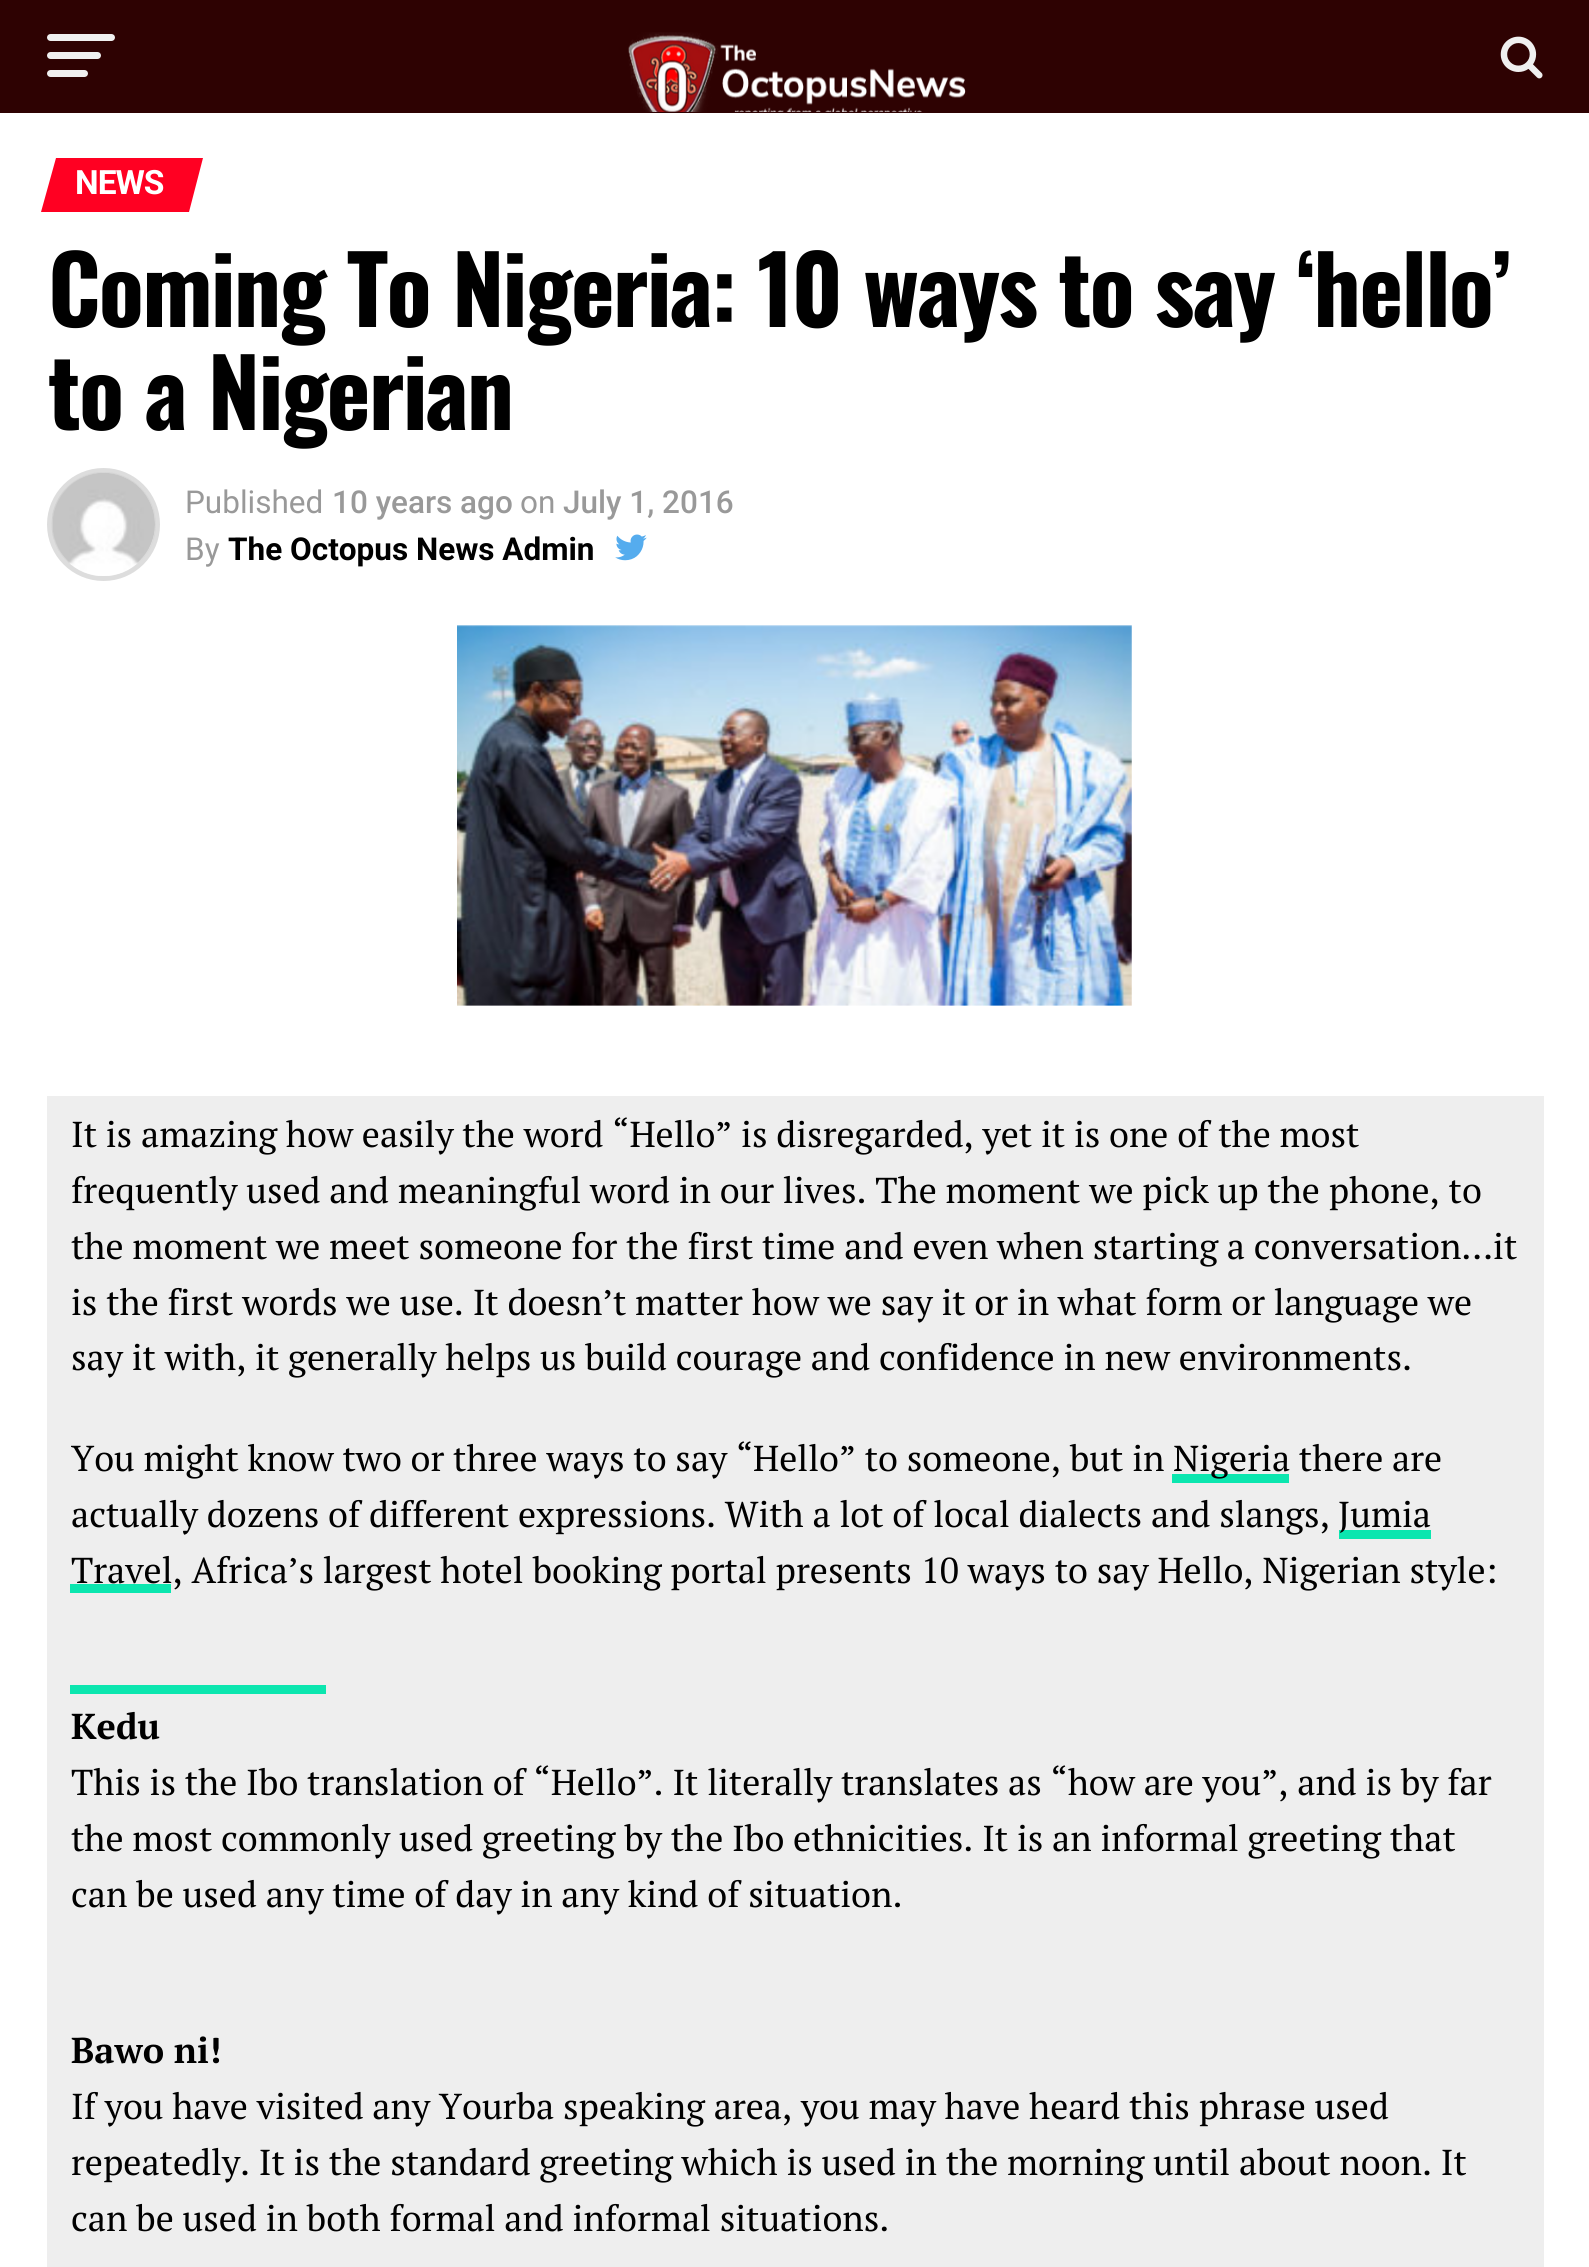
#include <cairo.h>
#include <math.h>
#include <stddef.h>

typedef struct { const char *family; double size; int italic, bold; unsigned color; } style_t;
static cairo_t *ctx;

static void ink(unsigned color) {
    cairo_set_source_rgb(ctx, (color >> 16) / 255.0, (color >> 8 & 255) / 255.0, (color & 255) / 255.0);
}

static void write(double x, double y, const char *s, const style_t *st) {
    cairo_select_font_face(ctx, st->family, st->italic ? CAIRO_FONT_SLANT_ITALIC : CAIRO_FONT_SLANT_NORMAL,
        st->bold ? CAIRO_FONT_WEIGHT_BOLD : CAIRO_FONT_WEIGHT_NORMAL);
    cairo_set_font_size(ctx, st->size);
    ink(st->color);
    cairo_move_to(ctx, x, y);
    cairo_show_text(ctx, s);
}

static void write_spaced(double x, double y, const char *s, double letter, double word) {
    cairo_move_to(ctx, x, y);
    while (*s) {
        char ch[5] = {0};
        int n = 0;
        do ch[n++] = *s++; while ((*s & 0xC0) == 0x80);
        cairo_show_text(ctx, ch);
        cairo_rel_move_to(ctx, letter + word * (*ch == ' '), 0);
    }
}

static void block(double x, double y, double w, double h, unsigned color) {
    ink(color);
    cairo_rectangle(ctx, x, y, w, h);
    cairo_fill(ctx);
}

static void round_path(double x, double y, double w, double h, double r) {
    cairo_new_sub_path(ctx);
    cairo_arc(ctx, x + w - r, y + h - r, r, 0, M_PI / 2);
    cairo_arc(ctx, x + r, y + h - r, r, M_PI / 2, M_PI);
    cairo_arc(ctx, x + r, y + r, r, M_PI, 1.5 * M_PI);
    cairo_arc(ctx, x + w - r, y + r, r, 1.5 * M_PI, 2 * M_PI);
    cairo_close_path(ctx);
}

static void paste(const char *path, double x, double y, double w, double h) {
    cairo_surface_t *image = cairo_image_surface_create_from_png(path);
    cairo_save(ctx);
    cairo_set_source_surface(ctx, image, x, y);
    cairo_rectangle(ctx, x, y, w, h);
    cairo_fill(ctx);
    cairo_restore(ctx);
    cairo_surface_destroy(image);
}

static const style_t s1 = {"Roboto", 31.5, 0, 0, 0x999999};
static const style_t s2 = {"Roboto Medium", 31.5, 0, 0, 0x999999};
static const style_t s3 = {"Roboto", 31.5, 0, 1, 0x000000};
static const style_t s4 = {"PT Serif", 36, 0, 0, 0x000000};
static const style_t s5 = {"PT Serif", 36, 0, 1, 0x000000};

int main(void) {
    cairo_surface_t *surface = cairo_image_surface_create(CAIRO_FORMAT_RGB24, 1589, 2267);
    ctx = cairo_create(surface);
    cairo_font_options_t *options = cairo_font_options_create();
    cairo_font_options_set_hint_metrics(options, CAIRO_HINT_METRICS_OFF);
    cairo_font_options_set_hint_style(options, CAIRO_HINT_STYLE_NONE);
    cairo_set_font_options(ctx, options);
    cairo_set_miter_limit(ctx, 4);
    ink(0xffffff);
    cairo_paint(ctx);
    block(0, 0, 1589, 113, 0x2e0202);
    ink(0xf0f0f0);
    round_path(47, 34, 68, 7, 3.5);
    cairo_fill(ctx);
    round_path(47, 52, 54, 7, 3.5);
    cairo_fill(ctx);
    round_path(47, 70, 41, 7, 3.5);
    cairo_fill(ctx);
    paste("pic1.png", 628, 32, 338, 80);
    paste("pic2.png", 1500, 36, 43, 43);
    ink(0xff0022);
    cairo_new_path(ctx);
    cairo_move_to(ctx, 56, 158);
    cairo_line_to(ctx, 203, 158);
    cairo_line_to(ctx, 189, 212);
    cairo_line_to(ctx, 41, 212);
    cairo_close_path(ctx);
    cairo_fill(ctx);
    cairo_select_font_face(ctx, "Roboto", CAIRO_FONT_SLANT_NORMAL, CAIRO_FONT_WEIGHT_BOLD);
    cairo_set_font_size(ctx, 33.5);
    ink(0xffffff);
    write_spaced(75, 194, "NEWS", -1, 0);
    cairo_select_font_face(ctx, "Oswald", CAIRO_FONT_SLANT_NORMAL, CAIRO_FONT_WEIGHT_BOLD);
    cairo_set_font_size(ctx, 93.6);
    ink(0x000000);
    write_spaced(48, 327, "Coming To Nigeria: 10 ways to say ‘hello’", -1.85, 0);
    write_spaced(48, 430, "to a Nigerian", -1.85, 0);
    cairo_new_path(ctx);
    cairo_arc(ctx, 103.5, 524.5, 54, 0, 2 * M_PI);
    ink(0xdddddd);
    cairo_set_line_width(ctx, 5);
    cairo_stroke(ctx);
    paste("pic3.png", 51, 472, 105, 104);
    write(185, 513, "Published", &s1);
    write(332, 513, "10 years ago", &s2);
    write(520, 513, "on", &s1);
    write(563, 513, "July 1, 2016", &s2);
    write(185, 560, "By", &s1);
    write(228, 560, "The Octopus News Admin", &s3);
    paste("pic4.png", 615, 534, 32, 27);
    paste("pic5.png", 457, 625, 675, 381);
    block(47, 1096, 1497, 1171, 0xeeeeee);
    write(71, 1147, "It is amazing how easily the word “Hello” is disregarded, yet it is one of the most", &s4);
    write(71, 1203, "frequently used and meaningful word in our lives. The moment we pick up the phone, to", &s4);
    write(71, 1259, "the moment we meet someone for the first time and even when starting a conversation…it", &s4);
    write(71, 1315, "is the first words we use. It doesn’t matter how we say it or in what form or language we", &s4);
    write(71, 1370, "say it with, it generally helps us build courage and confidence in new environments.", &s4);
    write(71, 1471, "You might know two or three ways to say “Hello” to someone, but in", &s4);
    block(1172, 1474, 117, 9, 0x0be6af);
    write(1173, 1471, "Nigeria there are", &s4);
    write(71, 1527, "actually dozens of different expressions. With a lot of local dialects and slangs,", &s4);
    block(1339, 1530, 92, 9, 0x0be6af);
    write(1338, 1527, "Jumia", &s4);
    block(70, 1584, 101, 9, 0x0be6af);
    write(71, 1583, "Travel, Africa’s largest hotel booking portal presents 10 ways to say Hello, Nigerian style:", &s4);
    block(70, 1685, 256, 9, 0x0be6af);
    write(71, 1739, "Kedu", &s5);
    write(71, 1795, "This is the Ibo translation of “Hello”. It literally translates as “how are you”, and is by far", &s4);
    write(71, 1851, "the most commonly used greeting by the Ibo ethnicities. It is an informal greeting that", &s4);
    write(71, 1907, "can be used any time of day in any kind of situation.", &s4);
    write(71, 2063, "Bawo ni!", &s5);
    write(71, 2119, "If you have visited any Yourba speaking area, you may have heard this phrase used", &s4);
    write(71, 2175, "repeatedly. It is the standard greeting which is used in the morning until about noon. It", &s4);
    write(71, 2231, "can be used in both formal and informal situations.", &s4);
    cairo_surface_write_to_png(surface, "screenshot.png");
    cairo_font_options_destroy(options);
    cairo_destroy(ctx);
    cairo_surface_destroy(surface);
    return 0;
}
